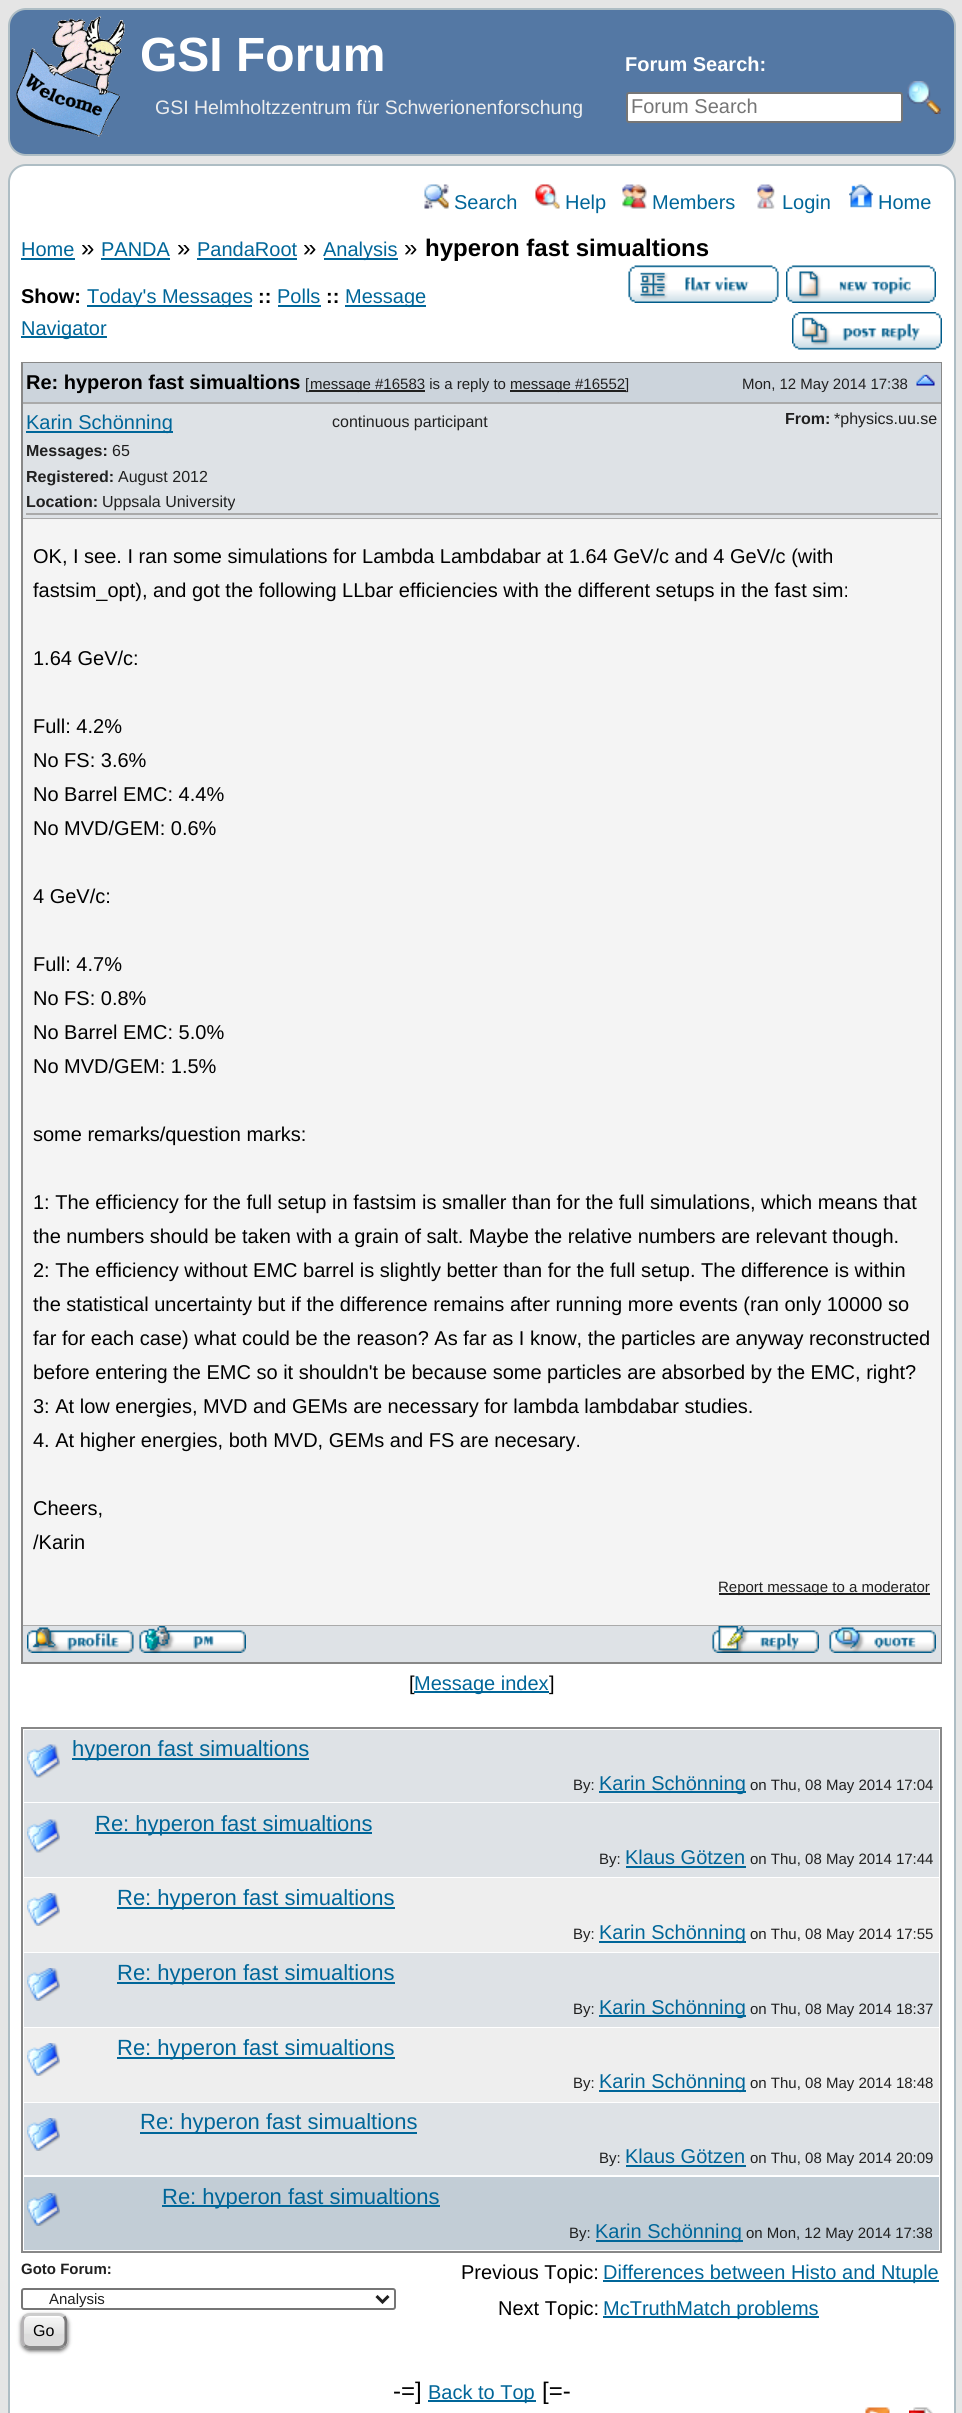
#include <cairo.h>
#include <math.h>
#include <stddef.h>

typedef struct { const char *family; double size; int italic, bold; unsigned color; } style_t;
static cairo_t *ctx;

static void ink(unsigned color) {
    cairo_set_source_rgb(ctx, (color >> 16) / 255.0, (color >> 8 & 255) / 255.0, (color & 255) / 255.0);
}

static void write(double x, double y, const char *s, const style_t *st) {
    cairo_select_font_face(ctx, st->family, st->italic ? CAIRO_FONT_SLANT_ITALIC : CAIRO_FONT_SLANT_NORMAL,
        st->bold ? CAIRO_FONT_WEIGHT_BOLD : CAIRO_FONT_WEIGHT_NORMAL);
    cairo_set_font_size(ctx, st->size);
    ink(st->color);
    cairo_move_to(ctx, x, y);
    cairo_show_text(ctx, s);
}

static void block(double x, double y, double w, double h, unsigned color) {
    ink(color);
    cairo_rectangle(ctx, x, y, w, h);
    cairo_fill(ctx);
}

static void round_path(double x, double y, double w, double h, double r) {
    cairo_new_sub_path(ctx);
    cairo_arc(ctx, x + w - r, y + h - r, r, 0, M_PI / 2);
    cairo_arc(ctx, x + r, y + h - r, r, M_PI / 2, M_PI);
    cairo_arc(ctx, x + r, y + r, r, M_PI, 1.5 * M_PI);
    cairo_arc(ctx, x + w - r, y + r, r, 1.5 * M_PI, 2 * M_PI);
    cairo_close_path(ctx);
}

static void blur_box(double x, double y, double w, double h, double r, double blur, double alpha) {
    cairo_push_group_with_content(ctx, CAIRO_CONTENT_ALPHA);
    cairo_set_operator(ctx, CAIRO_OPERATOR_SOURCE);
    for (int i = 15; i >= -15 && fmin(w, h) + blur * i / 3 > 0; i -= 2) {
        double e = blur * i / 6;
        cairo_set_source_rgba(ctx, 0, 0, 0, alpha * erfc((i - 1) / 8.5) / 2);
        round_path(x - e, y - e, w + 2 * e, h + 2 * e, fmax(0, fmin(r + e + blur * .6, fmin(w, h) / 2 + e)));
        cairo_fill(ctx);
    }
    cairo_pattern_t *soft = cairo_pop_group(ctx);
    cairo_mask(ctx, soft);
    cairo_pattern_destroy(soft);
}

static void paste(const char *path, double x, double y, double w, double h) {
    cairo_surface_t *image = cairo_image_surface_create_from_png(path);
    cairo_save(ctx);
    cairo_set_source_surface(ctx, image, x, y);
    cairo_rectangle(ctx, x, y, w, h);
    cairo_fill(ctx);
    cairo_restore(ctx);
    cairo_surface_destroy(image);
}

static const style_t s1 = {"Liberation Sans", 48, 0, 1, 0xffffff};
static const style_t s2 = {"Liberation Sans", 20, 0, 1, 0xffffff};
static const style_t s3 = {"Liberation Sans", 20, 0, 0, 0x757575};
static const style_t s4 = {"Liberation Sans", 19.5, 0, 0, 0xeeeeee};
static const style_t s5 = {"Liberation Sans", 20, 0, 0, 0x006699};
static const style_t s6 = {"Liberation Sans", 24, 0, 0, 0x000000};
static const style_t s7 = {"Liberation Sans", 24, 0, 1, 0x000000};
static const style_t s8 = {"Liberation Sans", 20, 0, 1, 0x000000};
static const style_t s9 = {"Liberation Sans", 15, 0, 0, 0x202020};
static const style_t s10 = {"Liberation Sans", 16, 0, 1, 0x202020};
static const style_t s11 = {"Liberation Sans", 16, 0, 0, 0x202020};
static const style_t s12 = {"Liberation Sans", 20, 0, 0, 0x000000};
static const style_t s13 = {"Liberation Sans", 22, 0, 0, 0x006699};
static const style_t s14 = {"Liberation Sans", 15, 0, 1, 0x202020};
static const style_t s15 = {"Liberation Sans", 16, 0, 0, 0x000000};

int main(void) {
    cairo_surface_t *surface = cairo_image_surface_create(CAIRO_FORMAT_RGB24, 962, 2413);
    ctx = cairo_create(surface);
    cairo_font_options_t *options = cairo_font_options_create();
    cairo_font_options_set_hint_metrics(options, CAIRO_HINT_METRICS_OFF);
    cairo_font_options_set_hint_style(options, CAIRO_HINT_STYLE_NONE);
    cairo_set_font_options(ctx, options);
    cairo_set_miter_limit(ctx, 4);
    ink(0xe5e5e5);
    cairo_paint(ctx);
    ink(0x5478a4);
    round_path(9, 9, 946, 146, 17);
    cairo_fill_preserve(ctx);
    ink(0xaebdc4);
    cairo_stroke(ctx);
    paste("pic1.png", 16, 16, 109, 121);
    write(140, 71, "GSI Forum", &s1);
    write(625, 71, "Forum Search:", &s2);
    round_path(627, 93, 275, 29, 2);
    cairo_fill_preserve(ctx);
    ink(0x767676);
    cairo_stroke(ctx);
    write(631, 113, "Forum Search", &s3);
    paste("pic2.png", 907, 81, 34, 33);
    write(155, 114, "GSI Helmholtzzentrum für Schwerionenforschung", &s4);
    ink(0xffffff);
    round_path(9, 165, 946, 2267, 17);
    cairo_fill_preserve(ctx);
    ink(0xaebdc4);
    cairo_stroke(ctx);
    paste("pic3.png", 424, 184, 25, 25);
    write(454, 209, "Search", &s5);
    paste("pic4.png", 535, 184, 25, 25);
    write(565, 209, "Help", &s5);
    paste("pic5.png", 622, 184, 25, 25);
    write(652, 209, "Members", &s5);
    paste("pic6.png", 757, 184, 18, 25);
    write(782, 209, "Login", &s5);
    paste("pic7.png", 849, 184, 24, 24);
    write(878, 209, "Home", &s5);
    write(21, 256, "Home", &s5);
    block(21, 258, 54, 2, 0x006699);
    write(81, 256, "»", &s6);
    write(101, 256, "PANDA", &s5);
    block(101, 258, 69, 2, 0x006699);
    write(177, 256, "»", &s6);
    write(197, 256, "PandaRoot", &s5);
    block(197, 258, 100, 2, 0x006699);
    write(303, 256, "»", &s6);
    block(324, 258, 74, 2, 0x006699);
    write(323, 256, "Analysis", &s5);
    write(404, 256, "»", &s6);
    write(425, 256, "hyperon fast simualtions", &s7);
    write(21, 303, "Show:", &s8);
    block(87, 305, 165, 2, 0x006699);
    write(87, 303, "Today's Messages", &s5);
    write(258, 303, "::", &s8);
    write(277, 303, "Polls", &s5);
    block(278, 305, 43, 2, 0x006699);
    write(326, 303, "::", &s8);
    block(345, 305, 81, 2, 0x006699);
    write(345, 303, "Message", &s5);
    block(21, 336, 86, 2, 0x006699);
    write(21, 335, "Navigator", &s5);
    paste("pic8.png", 628, 265, 151, 38);
    paste("pic9.png", 786, 265, 150, 38);
    paste("pic10.png", 792, 312, 150, 38);
    cairo_rectangle(ctx, 22, 363, 919, 1300);
    ink(0x888888);
    cairo_stroke(ctx);
    block(23, 363, 918, 39, 0xccd4dc);
    block(23, 402, 918, 2, 0xaaaaaa);
    write(26, 389, "Re: hyperon fast simualtions", &s8);
    write(305, 389, "[", &s9);
    block(309, 390, 116, 2, 0x202020);
    write(310, 389, "message #16583 is a reply to", &s9);
    block(510, 390, 116, 2, 0x202020);
    write(510, 389, "message #16552]", &s9);
    write(742, 389, "Mon, 12 May 2014 17:38", &s9);
    paste("pic11.png", 916, 374, 19, 12);
    block(23, 404, 918, 114, 0xdee2e6);
    block(23, 518, 918, 1, 0xaaaaaa);
    block(26, 513, 912, 2, 0xaaaaaa);
    block(26, 431, 147, 2, 0x006699);
    write(26, 429, "Karin Schönning", &s5);
    write(26, 456, "Messages:", &s10);
    write(112, 456, "65", &s11);
    write(26, 482, "Registered:", &s10);
    write(118, 482, "August 2012", &s11);
    write(26, 507, "Location:", &s10);
    write(102, 507, "Uppsala University", &s11);
    write(332, 427, "continuous participant", &s11);
    write(785, 424, "From:", &s10);
    write(834, 424, "*physics.uu.se", &s11);
    block(23, 519, 918, 1106, 0xf4f4f4);
    block(23, 1625, 918, 1, 0xaaaaaa);
    write(33, 563, "OK, I see. I ran some simulations for Lambda Lambdabar at 1.64 GeV/c and 4 GeV/c (with", &s12);
    write(33, 597, "fastsim_opt), and got the following LLbar efficiencies with the different setups in the fast sim:", &s12);
    write(33, 665, "1.64 GeV/c:", &s12);
    write(33, 733, "Full: 4.2%", &s12);
    write(33, 767, "No FS: 3.6%", &s12);
    write(33, 801, "No Barrel EMC: 4.4%", &s12);
    write(33, 835, "No MVD/GEM: 0.6%", &s12);
    write(33, 903, "4 GeV/c:", &s12);
    write(33, 971, "Full: 4.7%", &s12);
    write(33, 1005, "No FS: 0.8%", &s12);
    write(33, 1039, "No Barrel EMC: 5.0%", &s12);
    write(33, 1073, "No MVD/GEM: 1.5%", &s12);
    write(33, 1141, "some remarks/question marks:", &s12);
    write(33, 1209, "1: The efficiency for the full setup in fastsim is smaller than for the full simulations, which means that", &s12);
    write(33, 1243, "the numbers should be taken with a grain of salt. Maybe the relative numbers are relevant though.", &s12);
    write(33, 1277, "2: The efficiency without EMC barrel is slightly better than for the full setup. The difference is within", &s12);
    write(33, 1311, "the statistical uncertainty but if the difference remains after running more events (ran only 10000 so", &s12);
    write(33, 1345, "far for each case) what could be the reason? As far as I know, the particles are anyway reconstructed", &s12);
    write(33, 1379, "before entering the EMC so it shouldn't be because some particles are absorbed by the EMC, right?", &s12);
    write(33, 1413, "3: At low energies, MVD and GEMs are necessary for lambda lambdabar studies.", &s12);
    write(33, 1447, "4. At higher energies, both MVD, GEMs and FS are necesary.", &s12);
    write(33, 1515, "Cheers,", &s12);
    write(33, 1549, "/Karin", &s12);
    block(719, 1593, 211, 2, 0x202020);
    write(718, 1592, "Report message to a moderator", &s9);
    block(23, 1626, 918, 36, 0xdee2e6);
    paste("pic12.png", 27, 1627, 107, 26);
    paste("pic13.png", 139, 1626, 107, 27);
    paste("pic14.png", 712, 1626, 107, 27);
    paste("pic15.png", 829, 1627, 107, 26);
    write(409, 1690, "[", &s12);
    block(414, 1691, 135, 2, 0x006699);
    write(414, 1690, "Message index", &s5);
    write(549, 1690, "]", &s12);
    cairo_rectangle(ctx, 22, 1728, 919, 524);
    ink(0x888888);
    cairo_stroke(ctx);
    block(24, 1730, 915, 72, 0xdee2e6);
    paste("pic16.png", 27, 1744, 33, 34);
    block(72, 1758, 237, 2, 0x006699);
    write(72, 1756, "hyperon fast simualtions", &s13);
    write(573, 1790, "By:", &s9);
    block(599, 1791, 147, 2, 0x006699);
    write(599, 1790, "Karin Schönning", &s5);
    write(750, 1790, "on Thu, 08 May 2014 17:04", &s9);
    block(24, 1803, 915, 74, 0xdee2e6);
    paste("pic16.png", 27, 1819, 33, 34);
    block(95, 1832, 277, 2, 0x006699);
    write(95, 1831, "Re: hyperon fast simualtions", &s13);
    write(599, 1864, "By:", &s9);
    write(625, 1864, "Klaus Götzen", &s5);
    block(626, 1866, 120, 2, 0x006699);
    write(750, 1864, "on Thu, 08 May 2014 17:44", &s9);
    block(24, 1878, 915, 74, 0xeeeeee);
    paste("pic17.png", 27, 1893, 33, 33);
    block(117, 1907, 278, 2, 0x006699);
    write(117, 1905, "Re: hyperon fast simualtions", &s13);
    write(573, 1939, "By:", &s9);
    block(599, 1941, 147, 2, 0x006699);
    write(599, 1939, "Karin Schönning", &s5);
    write(750, 1939, "on Thu, 08 May 2014 17:55", &s9);
    block(24, 1953, 915, 74, 0xdee2e6);
    paste("pic18.png", 27, 1968, 33, 33);
    block(117, 1982, 278, 2, 0x006699);
    write(117, 1980, "Re: hyperon fast simualtions", &s13);
    write(573, 2014, "By:", &s9);
    block(599, 2015, 147, 2, 0x006699);
    write(599, 2014, "Karin Schönning", &s5);
    write(750, 2014, "on Thu, 08 May 2014 18:37", &s9);
    block(24, 2028, 915, 74, 0xeeeeee);
    paste("pic17.png", 27, 2043, 33, 33);
    block(117, 2057, 278, 2, 0x006699);
    write(117, 2055, "Re: hyperon fast simualtions", &s13);
    write(573, 2088, "By:", &s9);
    block(599, 2090, 147, 2, 0x006699);
    write(599, 2088, "Karin Schönning", &s5);
    write(750, 2088, "on Thu, 08 May 2014 18:48", &s9);
    block(24, 2103, 915, 72, 0xdee2e6);
    paste("pic18.png", 27, 2118, 33, 33);
    block(140, 2132, 277, 2, 0x006699);
    write(140, 2129, "Re: hyperon fast simualtions", &s13);
    write(599, 2163, "By:", &s9);
    write(625, 2163, "Klaus Götzen", &s5);
    block(626, 2165, 120, 2, 0x006699);
    write(750, 2163, "on Thu, 08 May 2014 20:09", &s9);
    block(24, 2177, 915, 73, 0xc2cdd6);
    paste("pic19.png", 27, 2193, 33, 33);
    block(162, 2205, 278, 2, 0x006699);
    write(162, 2204, "Re: hyperon fast simualtions", &s13);
    write(569, 2238, "By:", &s9);
    block(596, 2240, 147, 2, 0x006699);
    write(595, 2238, "Karin Schönning", &s5);
    write(746, 2238, "on Mon, 12 May 2014 17:38", &s9);
    write(21, 2274, "Goto Forum:", &s14);
    write(461, 2279, "Previous Topic:", &s12);
    block(603, 2280, 336, 2, 0x006699);
    write(603, 2279, "Differences between Histo and Ntuple", &s5);
    write(498, 2315, "Next Topic:", &s12);
    block(603, 2316, 216, 2, 0x006699);
    write(603, 2315, "McTruthMatch problems", &s5);
    round_path(22, 2289, 373, 20, 2);
    ink(0x767676);
    cairo_stroke(ctx);
    cairo_new_path(ctx);
    cairo_move_to(ctx, 376.5, 2296);
    cairo_line_to(ctx, 382.5, 2302);
    cairo_line_to(ctx, 388.5, 2296);
    ink(0x202020);
    cairo_set_line_width(ctx, 3);
    cairo_stroke(ctx);
    write(49, 2304, "Analysis", &s9);
    ink(0x000000);
    blur_box(21, 2315, 47, 36, 9, 2, 0.6);
    ink(0xdddddd);
    round_path(21, 2313, 47, 36, 9);
    cairo_fill(ctx);
    paste("pic20.png", 21, 2316, 47, 18);
    cairo_new_path(ctx);
    cairo_move_to(ctx, 24.5, 2316.5);
    cairo_curve_to(ctx, 26, 2315.5, 28, 2314.5, 30, 2314.5);
    cairo_line_to(ctx, 58.5, 2314.5);
    cairo_curve_to(ctx, 60.5, 2314.5, 62.5, 2315.5, 64, 2316.5);
    ink(0xcccccc);
    cairo_stroke(ctx);
    cairo_new_path(ctx);
    cairo_move_to(ctx, 64, 2316.5);
    cairo_curve_to(ctx, 65, 2318, 66, 2320, 66, 2322);
    cairo_line_to(ctx, 66, 2340);
    cairo_curve_to(ctx, 66, 2342, 65, 2344, 64, 2345.5);
    ink(0x787778);
    cairo_stroke(ctx);
    cairo_new_path(ctx);
    cairo_move_to(ctx, 64, 2345.5);
    cairo_curve_to(ctx, 62.5, 2346.5, 60.5, 2347.5, 58.5, 2347.5);
    cairo_line_to(ctx, 30, 2347.5);
    cairo_curve_to(ctx, 28, 2347.5, 26, 2346.5, 24.5, 2345.5);
    ink(0x888888);
    cairo_stroke(ctx);
    cairo_new_path(ctx);
    cairo_move_to(ctx, 24.5, 2345.5);
    cairo_curve_to(ctx, 23.5, 2344, 22.5, 2342, 22.5, 2340);
    cairo_line_to(ctx, 22.5, 2322);
    cairo_curve_to(ctx, 22.5, 2320, 23.5, 2318, 24.5, 2316.5);
    ink(0xb4b2b4);
    cairo_stroke(ctx);
    write(33, 2336, "Go", &s15);
    write(393, 2399, "-=]", &s6);
    block(428, 2400, 108, 2, 0x006699);
    write(428, 2399, "Back to Top", &s5);
    write(542, 2399, "[=-", &s6);
    paste("pic21.png", 865, 2407, 25, 6);
    paste("pic22.png", 909, 2407, 24, 6);
    cairo_surface_write_to_png(surface, "screenshot.png");
    cairo_font_options_destroy(options);
    cairo_destroy(ctx);
    cairo_surface_destroy(surface);
    return 0;
}
